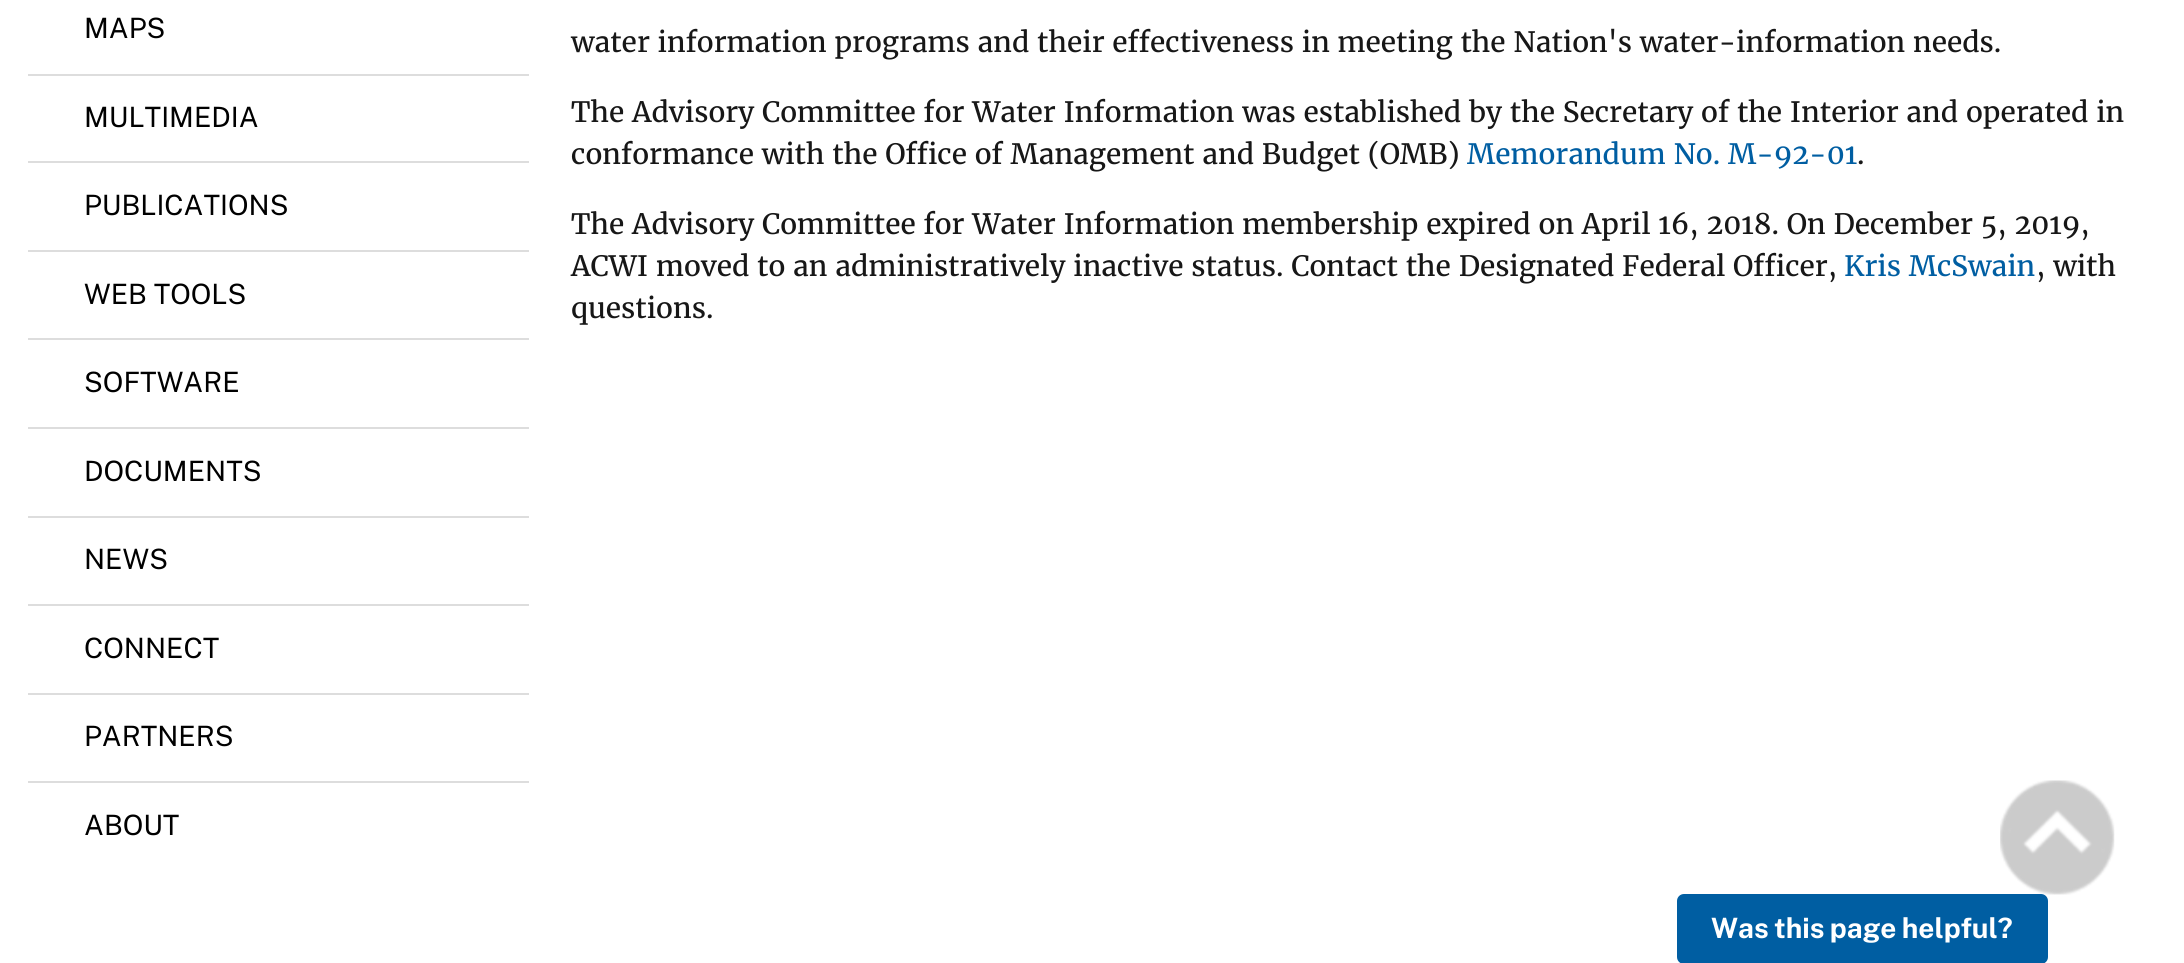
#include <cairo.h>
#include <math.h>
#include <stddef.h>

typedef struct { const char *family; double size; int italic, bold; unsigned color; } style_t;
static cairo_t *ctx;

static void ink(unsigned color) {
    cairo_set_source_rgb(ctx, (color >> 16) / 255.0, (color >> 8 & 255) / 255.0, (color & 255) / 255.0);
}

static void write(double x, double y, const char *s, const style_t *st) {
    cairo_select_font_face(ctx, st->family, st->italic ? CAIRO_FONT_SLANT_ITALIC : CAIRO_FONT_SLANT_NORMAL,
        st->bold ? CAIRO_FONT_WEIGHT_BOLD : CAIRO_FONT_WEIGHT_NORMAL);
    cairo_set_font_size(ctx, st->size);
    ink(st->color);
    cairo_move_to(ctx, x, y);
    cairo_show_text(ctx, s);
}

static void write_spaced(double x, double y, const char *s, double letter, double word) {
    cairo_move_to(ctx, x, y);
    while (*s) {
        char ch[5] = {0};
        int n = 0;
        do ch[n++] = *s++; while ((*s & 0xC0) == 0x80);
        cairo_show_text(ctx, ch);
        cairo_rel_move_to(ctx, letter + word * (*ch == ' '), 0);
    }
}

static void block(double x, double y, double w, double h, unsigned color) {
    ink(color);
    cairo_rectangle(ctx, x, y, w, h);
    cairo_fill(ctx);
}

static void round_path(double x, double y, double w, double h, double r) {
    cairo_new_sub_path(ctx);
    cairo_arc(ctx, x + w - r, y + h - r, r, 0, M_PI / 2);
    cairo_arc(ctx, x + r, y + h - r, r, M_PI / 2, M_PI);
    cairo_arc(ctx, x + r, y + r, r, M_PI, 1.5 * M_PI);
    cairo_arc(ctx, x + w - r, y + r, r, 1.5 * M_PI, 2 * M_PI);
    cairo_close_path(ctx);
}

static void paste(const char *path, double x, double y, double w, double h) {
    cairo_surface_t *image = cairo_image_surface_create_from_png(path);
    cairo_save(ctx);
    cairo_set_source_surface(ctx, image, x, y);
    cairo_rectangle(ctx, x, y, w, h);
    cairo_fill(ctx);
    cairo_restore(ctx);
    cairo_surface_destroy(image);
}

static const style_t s1 = {"Public Sans", 28, 0, 0, 0x000000};
static const style_t s2 = {"Merriweather", 28, 0, 0, 0x171717};
static const style_t s3 = {"Merriweather", 28, 0, 0, 0x005ea2};

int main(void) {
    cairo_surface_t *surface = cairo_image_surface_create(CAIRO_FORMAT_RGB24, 2184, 963);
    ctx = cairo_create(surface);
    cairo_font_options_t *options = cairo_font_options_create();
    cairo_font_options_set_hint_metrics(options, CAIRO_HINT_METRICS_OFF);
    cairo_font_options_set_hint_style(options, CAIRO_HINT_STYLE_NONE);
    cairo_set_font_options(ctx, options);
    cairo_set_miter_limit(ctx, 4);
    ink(0xffffff);
    cairo_paint(ctx);
    write(84, 38, "MAPS", &s1);
    block(28, 74, 501, 2, 0xdddddd);
    write(84, 127, "MULTIMEDIA", &s1);
    block(28, 161, 501, 2, 0xdddddd);
    write(84, 215, "PUBLICATIONS", &s1);
    block(28, 250, 501, 2, 0xdddddd);
    write(84, 304, "WEB TOOLS", &s1);
    block(28, 338, 501, 2, 0xdddddd);
    write(84, 392, "SOFTWARE", &s1);
    block(28, 427, 501, 2, 0xdddddd);
    write(84, 481, "DOCUMENTS", &s1);
    block(28, 516, 501, 2, 0xdddddd);
    write(84, 569, "NEWS", &s1);
    block(28, 604, 501, 2, 0xdddddd);
    write(84, 658, "CONNECT", &s1);
    block(28, 693, 501, 2, 0xdddddd);
    write(84, 746, "PARTNERS", &s1);
    block(28, 781, 501, 2, 0xdddddd);
    write(84, 835, "ABOUT", &s1);
    write(571, 52, "water information programs and their effectiveness in meeting the Nation's water-information needs.", &s2);
    write(571, 122, "The Advisory Committee for Water Information was established by the Secretary of the Interior and operated in", &s2);
    write(571, 164, "conformance with the Office of Management and Budget (OMB)", &s2);
    write(1467, 164, "Memorandum No. M-92-01", &s3);
    write(1857, 164, ".", &s2);
    write(571, 234, "The Advisory Committee for Water Information membership expired on April 16, 2018. On December 5, 2019,", &s2);
    write(571, 276, "ACWI moved to an administratively inactive status. Contact the Designated Federal Officer,", &s2);
    write(1844, 276, "Kris McSwain", &s3);
    write(2036, 276, ", with", &s2);
    write(571, 318, "questions.", &s2);
    paste("pic1.png", 2000, 780, 115, 115);
    ink(0x005ea2);
    round_path(1677, 894, 371, 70, 7);
    cairo_fill(ctx);
    cairo_select_font_face(ctx, "Public Sans", CAIRO_FONT_SLANT_NORMAL, CAIRO_FONT_WEIGHT_BOLD);
    ink(0xffffff);
    write_spaced(1711, 938, "Was this page helpful?", 0, -1);
    cairo_surface_write_to_png(surface, "screenshot.png");
    cairo_font_options_destroy(options);
    cairo_destroy(ctx);
    cairo_surface_destroy(surface);
    return 0;
}
